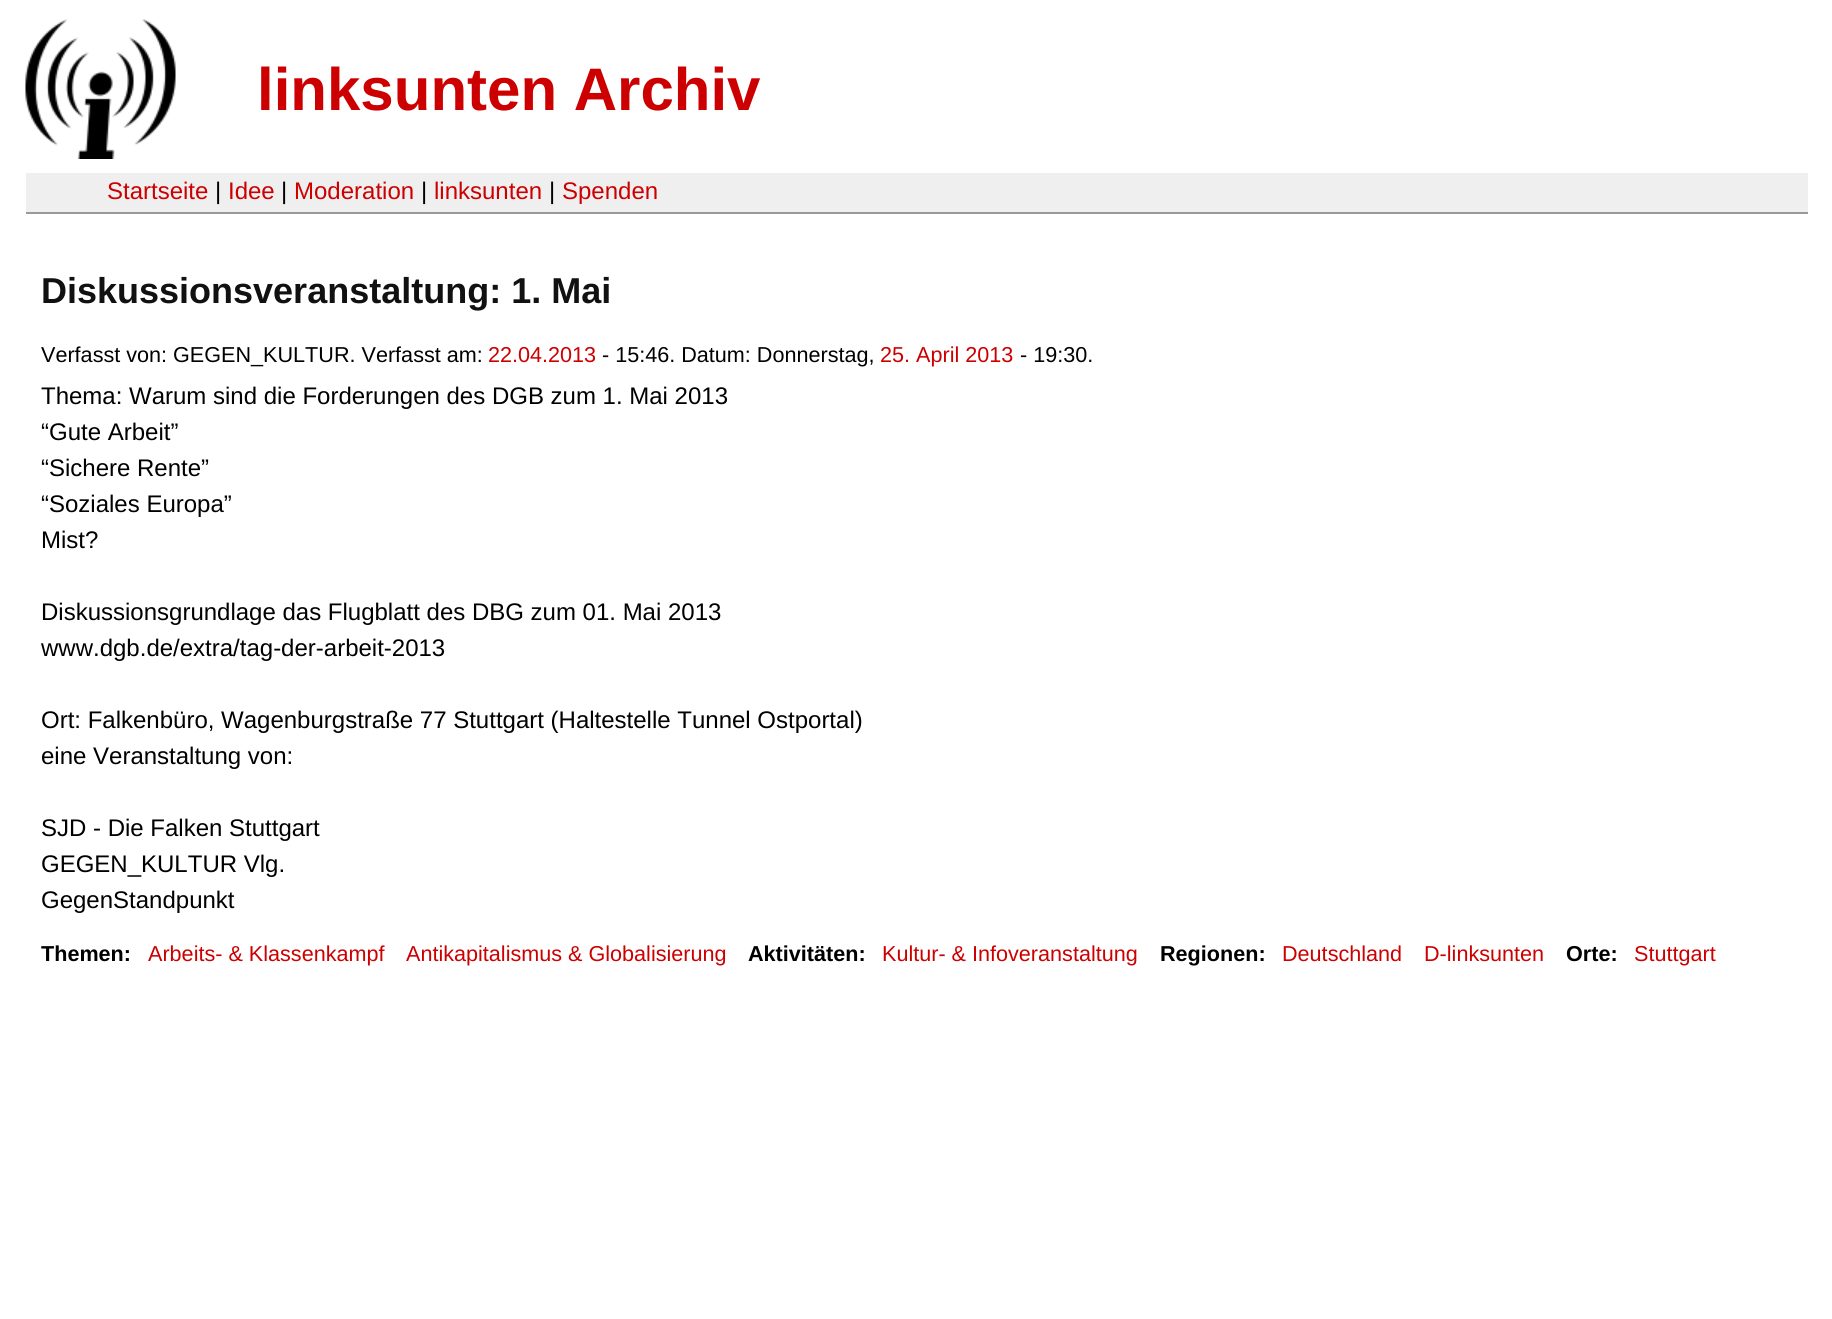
#include <cairo.h>
#include <math.h>
#include <stddef.h>

typedef struct { const char *family; double size; int italic, bold; unsigned color; } style_t;
static cairo_t *ctx;

static void ink(unsigned color) {
    cairo_set_source_rgb(ctx, (color >> 16) / 255.0, (color >> 8 & 255) / 255.0, (color & 255) / 255.0);
}

static void write(double x, double y, const char *s, const style_t *st) {
    cairo_select_font_face(ctx, st->family, st->italic ? CAIRO_FONT_SLANT_ITALIC : CAIRO_FONT_SLANT_NORMAL,
        st->bold ? CAIRO_FONT_WEIGHT_BOLD : CAIRO_FONT_WEIGHT_NORMAL);
    cairo_set_font_size(ctx, st->size);
    ink(st->color);
    cairo_move_to(ctx, x, y);
    cairo_show_text(ctx, s);
}

static void block(double x, double y, double w, double h, unsigned color) {
    ink(color);
    cairo_rectangle(ctx, x, y, w, h);
    cairo_fill(ctx);
}

static void paste(const char *path, double x, double y, double w, double h) {
    cairo_surface_t *image = cairo_image_surface_create_from_png(path);
    cairo_save(ctx);
    cairo_set_source_surface(ctx, image, x, y);
    cairo_rectangle(ctx, x, y, w, h);
    cairo_fill(ctx);
    cairo_restore(ctx);
    cairo_surface_destroy(image);
}

static const style_t s1 = {"Liberation Sans", 60, 0, 1, 0xcc0000};
static const style_t s2 = {"Liberation Sans", 24, 0, 0, 0xcc0000};
static const style_t s3 = {"Liberation Sans", 24, 0, 0, 0x000000};
static const style_t s4 = {"Liberation Sans", 36, 0, 1, 0x111111};
static const style_t s5 = {"Liberation Sans", 21.6, 0, 0, 0x000000};
static const style_t s6 = {"Liberation Sans", 21.6, 0, 0, 0xcc0000};
static const style_t s7 = {"Liberation Sans", 21.6, 0, 1, 0x000000};

int main(void) {
    cairo_surface_t *surface = cairo_image_surface_create(CAIRO_FORMAT_RGB24, 1832, 1319);
    ctx = cairo_create(surface);
    cairo_font_options_t *options = cairo_font_options_create();
    cairo_font_options_set_hint_metrics(options, CAIRO_HINT_METRICS_OFF);
    cairo_font_options_set_hint_style(options, CAIRO_HINT_STYLE_NONE);
    cairo_set_font_options(ctx, options);
    cairo_set_miter_limit(ctx, 4);
    ink(0xffffff);
    cairo_paint(ctx);
    paste("pic1.png", 25, 19, 151, 140);
    write(257, 110, "linksunten Archiv", &s1);
    block(26, 173, 1782, 39, 0xefefef);
    block(26, 212, 1782, 2, 0x999999);
    write(107, 199, "Startseite", &s2);
    write(215, 199, "|", &s3);
    write(228, 199, "Idee", &s2);
    write(281, 199, "|", &s3);
    write(294, 199, "Moderation", &s2);
    write(421, 199, "|", &s3);
    write(434, 199, "linksunten", &s2);
    write(549, 199, "|", &s3);
    write(562, 199, "Spenden", &s2);
    write(41, 303, "Diskussionsveranstaltung: 1. Mai", &s4);
    write(41, 362, "Verfasst von: GEGEN_KULTUR. Verfasst am:", &s5);
    write(488, 362, "22.04.2013", &s6);
    write(602, 362, "- 15:46. Datum: Donnerstag,", &s5);
    write(880, 362, "25. April 2013", &s6);
    write(1020, 362, "- 19:30.", &s5);
    write(41, 404, "Thema: Warum sind die Forderungen des DGB zum 1. Mai 2013", &s3);
    write(41, 440, "“Gute Arbeit”", &s3);
    write(41, 476, "“Sichere Rente”", &s3);
    write(41, 512, "“Soziales Europa”", &s3);
    write(41, 548, "Mist?", &s3);
    write(41, 620, "Diskussionsgrundlage das Flugblatt des DBG zum 01. Mai 2013", &s3);
    write(41, 656, "www.dgb.de/extra/tag-der-arbeit-2013", &s3);
    write(41, 728, "Ort: Falkenbüro, Wagenburgstraße 77 Stuttgart (Haltestelle Tunnel Ostportal)", &s3);
    write(41, 764, "eine Veranstaltung von:", &s3);
    write(41, 836, "SJD - Die Falken Stuttgart", &s3);
    write(41, 872, "GEGEN_KULTUR Vlg.", &s3);
    write(41, 908, "GegenStandpunkt", &s3);
    write(41, 961, "Themen:", &s7);
    write(148, 961, "Arbeits- & Klassenkampf", &s6);
    write(406, 961, "Antikapitalismus & Globalisierung", &s6);
    write(748, 961, "Aktivitäten:", &s7);
    write(882, 961, "Kultur- & Infoveranstaltung", &s6);
    write(1160, 961, "Regionen:", &s7);
    write(1282, 961, "Deutschland", &s6);
    write(1424, 961, "D-linksunten", &s6);
    write(1566, 961, "Orte:", &s7);
    write(1634, 961, "Stuttgart", &s6);
    cairo_surface_write_to_png(surface, "screenshot.png");
    cairo_font_options_destroy(options);
    cairo_destroy(ctx);
    cairo_surface_destroy(surface);
    return 0;
}
